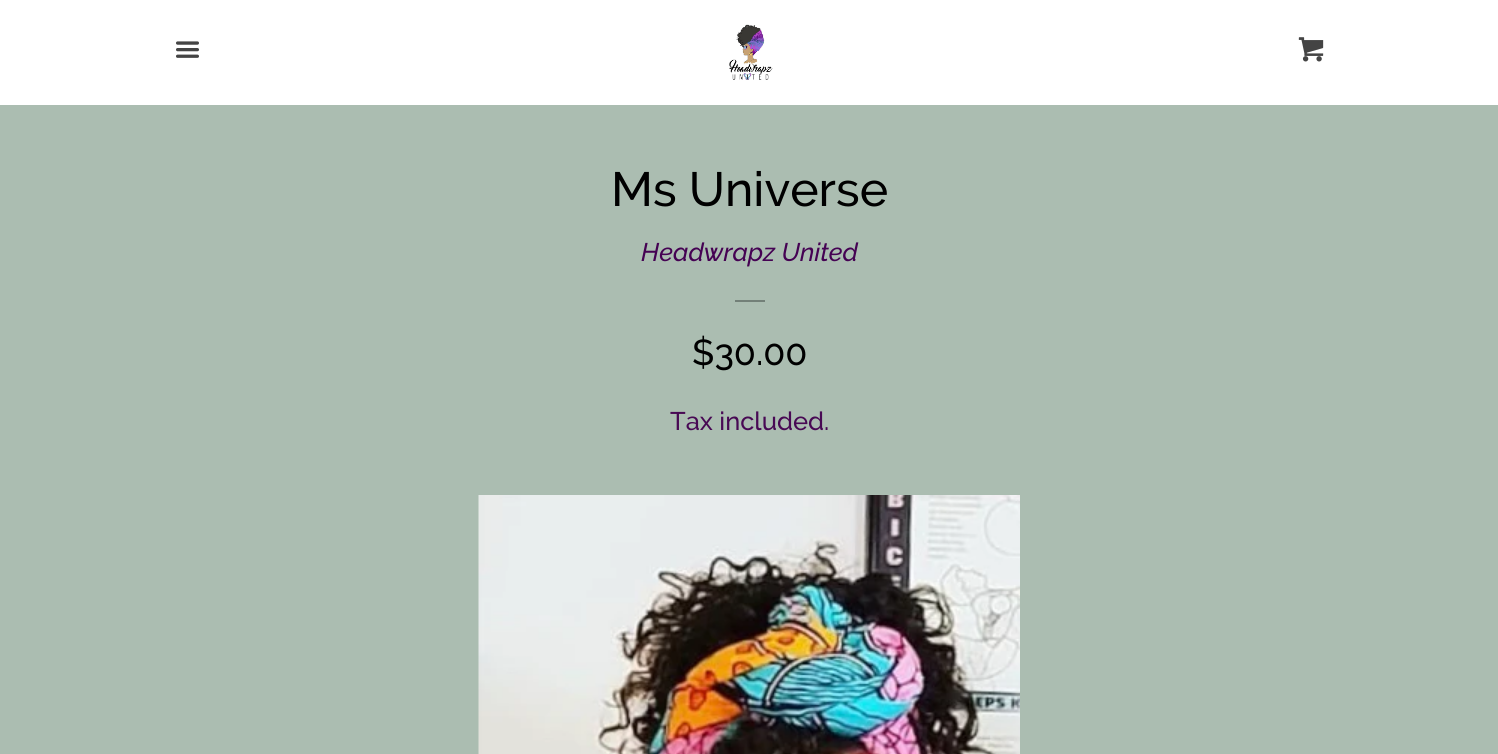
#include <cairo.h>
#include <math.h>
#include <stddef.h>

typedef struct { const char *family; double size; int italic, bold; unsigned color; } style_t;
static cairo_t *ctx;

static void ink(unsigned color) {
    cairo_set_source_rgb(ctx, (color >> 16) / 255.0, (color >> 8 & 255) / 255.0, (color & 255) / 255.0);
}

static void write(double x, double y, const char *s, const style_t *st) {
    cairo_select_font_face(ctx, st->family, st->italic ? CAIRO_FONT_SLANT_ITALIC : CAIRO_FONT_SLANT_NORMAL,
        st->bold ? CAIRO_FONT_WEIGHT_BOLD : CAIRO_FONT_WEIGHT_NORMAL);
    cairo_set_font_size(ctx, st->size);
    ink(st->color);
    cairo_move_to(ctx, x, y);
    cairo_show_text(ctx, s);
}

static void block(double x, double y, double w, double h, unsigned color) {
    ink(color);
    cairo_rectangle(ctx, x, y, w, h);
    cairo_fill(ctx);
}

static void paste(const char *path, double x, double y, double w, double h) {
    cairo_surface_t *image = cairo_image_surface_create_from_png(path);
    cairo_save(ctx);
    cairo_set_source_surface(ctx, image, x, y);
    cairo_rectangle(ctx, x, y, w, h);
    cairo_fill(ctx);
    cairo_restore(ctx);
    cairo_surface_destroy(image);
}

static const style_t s1 = {"Raleway Medium", 48, 0, 0, 0x000000};
static const style_t s2 = {"Raleway Medium", 25.5, 1, 0, 0x450253};
static const style_t s3 = {"Raleway Medium", 36, 0, 0, 0x000000};
static const style_t s4 = {"Raleway Medium", 25.5, 0, 0, 0x480954};

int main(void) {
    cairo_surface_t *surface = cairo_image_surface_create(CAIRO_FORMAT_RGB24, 1498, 754);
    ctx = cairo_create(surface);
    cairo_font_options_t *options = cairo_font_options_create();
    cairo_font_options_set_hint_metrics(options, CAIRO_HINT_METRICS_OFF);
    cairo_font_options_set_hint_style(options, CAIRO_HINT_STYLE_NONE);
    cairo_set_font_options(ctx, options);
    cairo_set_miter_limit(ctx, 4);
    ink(0xffffff);
    cairo_paint(ctx);
    paste("pic1.png", 176, 41, 23, 17);
    paste("pic2.png", 729, 24, 44, 56);
    paste("pic3.png", 1298, 37, 26, 25);
    block(0, 105, 1498, 649, 0xabbdb1);
    write(611, 206, "Ms Universe", &s1);
    write(641, 261, "Headwrapz United", &s2);
    block(735, 300, 30, 2, 0x738078);
    write(692, 365, "$30.00", &s3);
    write(670, 430, "Tax included.", &s4);
    paste("pic4.png", 478, 495, 542, 259);
    cairo_surface_write_to_png(surface, "screenshot.png");
    cairo_font_options_destroy(options);
    cairo_destroy(ctx);
    cairo_surface_destroy(surface);
    return 0;
}
